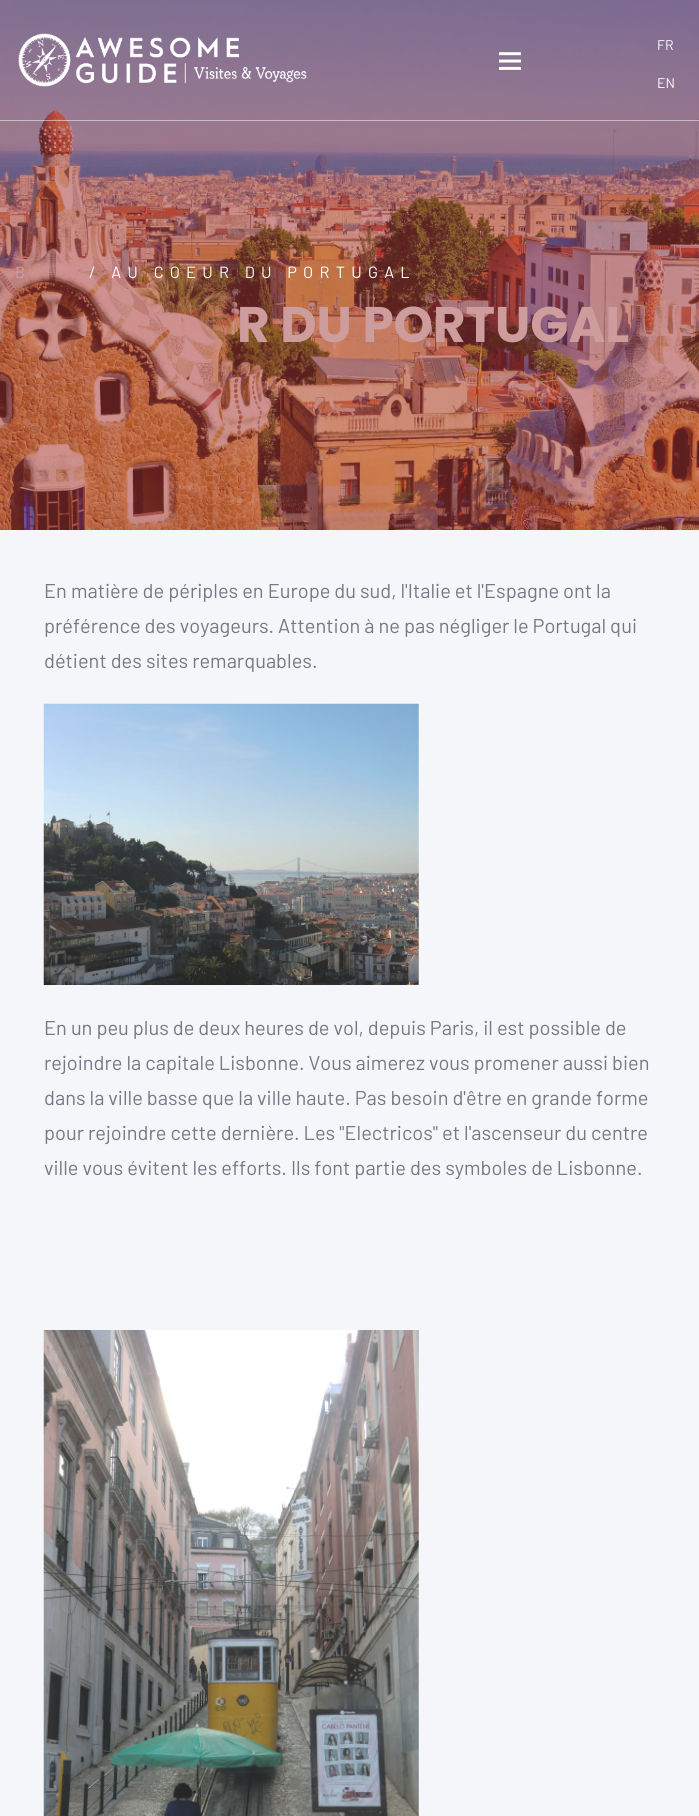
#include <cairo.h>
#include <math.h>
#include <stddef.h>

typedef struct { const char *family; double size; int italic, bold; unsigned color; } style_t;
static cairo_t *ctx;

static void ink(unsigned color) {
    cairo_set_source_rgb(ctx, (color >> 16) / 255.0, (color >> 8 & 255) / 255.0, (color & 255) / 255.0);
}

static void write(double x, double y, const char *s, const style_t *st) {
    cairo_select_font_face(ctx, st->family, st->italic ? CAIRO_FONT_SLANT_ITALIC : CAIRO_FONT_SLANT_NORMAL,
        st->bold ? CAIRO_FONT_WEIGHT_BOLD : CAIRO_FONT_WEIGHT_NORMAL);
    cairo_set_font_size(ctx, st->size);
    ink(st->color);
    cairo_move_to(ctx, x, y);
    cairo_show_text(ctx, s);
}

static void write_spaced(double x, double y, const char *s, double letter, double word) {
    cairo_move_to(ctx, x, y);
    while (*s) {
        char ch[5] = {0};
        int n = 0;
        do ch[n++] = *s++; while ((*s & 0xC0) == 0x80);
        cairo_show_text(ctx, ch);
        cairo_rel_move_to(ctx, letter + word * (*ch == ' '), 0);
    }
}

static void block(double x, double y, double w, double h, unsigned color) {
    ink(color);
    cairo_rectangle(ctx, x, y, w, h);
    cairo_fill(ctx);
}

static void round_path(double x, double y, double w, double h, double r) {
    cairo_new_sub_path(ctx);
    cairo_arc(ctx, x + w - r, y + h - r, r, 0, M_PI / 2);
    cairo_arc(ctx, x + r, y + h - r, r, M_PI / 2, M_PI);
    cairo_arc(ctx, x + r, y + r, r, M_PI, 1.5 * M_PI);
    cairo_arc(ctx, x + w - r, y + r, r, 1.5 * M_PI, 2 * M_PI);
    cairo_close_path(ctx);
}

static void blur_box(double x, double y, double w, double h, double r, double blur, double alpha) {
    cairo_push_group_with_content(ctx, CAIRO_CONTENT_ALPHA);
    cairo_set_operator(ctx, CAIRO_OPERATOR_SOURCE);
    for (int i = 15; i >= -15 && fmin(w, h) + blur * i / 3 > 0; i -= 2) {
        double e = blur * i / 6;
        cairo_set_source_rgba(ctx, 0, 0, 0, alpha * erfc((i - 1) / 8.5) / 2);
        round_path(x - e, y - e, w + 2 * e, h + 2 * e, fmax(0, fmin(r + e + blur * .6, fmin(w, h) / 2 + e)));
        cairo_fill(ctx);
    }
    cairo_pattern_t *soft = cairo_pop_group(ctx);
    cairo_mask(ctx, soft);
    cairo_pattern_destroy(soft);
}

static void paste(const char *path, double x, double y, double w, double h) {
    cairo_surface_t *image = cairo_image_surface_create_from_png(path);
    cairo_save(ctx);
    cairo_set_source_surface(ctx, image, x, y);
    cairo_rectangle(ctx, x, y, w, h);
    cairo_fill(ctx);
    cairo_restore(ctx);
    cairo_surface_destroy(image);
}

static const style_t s1 = {"Barlow", 14, 0, 0, 0xffffff};
static const style_t s2 = {"Poppins", 50, 0, 1, 0xcd9d9d};
static const style_t s3 = {"Barlow", 20, 0, 0, 0x767885};

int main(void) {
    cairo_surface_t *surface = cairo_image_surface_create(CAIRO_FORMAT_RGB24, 699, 1816);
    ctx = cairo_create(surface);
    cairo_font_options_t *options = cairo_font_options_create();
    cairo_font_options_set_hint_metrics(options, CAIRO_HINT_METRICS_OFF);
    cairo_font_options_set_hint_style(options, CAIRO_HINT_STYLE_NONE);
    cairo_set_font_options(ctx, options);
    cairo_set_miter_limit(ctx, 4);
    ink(0xffffff);
    cairo_paint(ctx);
    paste("pic3.png", 0, 0, 699, 530);
    cairo_set_source_rgba(ctx, 1, 1, 1, 0.5);
    cairo_rectangle(ctx, 0, 120, 699, 1);
    cairo_fill(ctx);
    paste("pic1.png", 18, 33, 289, 54);
    paste("pic2.png", 498, 52, 24, 18);
    write(657, 50, "FR", &s1);
    write(657, 88, "EN", &s1);
    cairo_set_font_size(ctx, 16.25);
    ink(0xcd9d9d);
    write_spaced(15, 278, "B", 6.25, 0);
    ink(0xffffff);
    write_spaced(89, 278, "/ AU COEUR DU PORTUGAL", 6.25, 0);
    write(237, 342, "R DU PORTUGAL", &s2);
    ink(0x5c1f1f);
    blur_box(19, 549, 662, 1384, 0, 39, 0.25);
    block(0, 530, 699, 1286, 0xf5f6f9);
    write(44, 598, "En matière de périples en Europe du sud, l'Italie et l'Espagne ont la", &s3);
    write(44, 633, "préférence des voyageurs. Attention à ne pas négliger le Portugal qui", &s3);
    write(44, 668, "détient des sites remarquables.", &s3);
    paste("pic4.png", 43, 703, 376, 282);
    write(44, 1035, "En un peu plus de deux heures de vol, depuis Paris, il est possible de", &s3);
    write(44, 1070, "rejoindre la capitale Lisbonne. Vous aimerez vous promener aussi bien", &s3);
    write(44, 1105, "dans la ville basse que la ville haute. Pas besoin d'être en grande forme", &s3);
    write(44, 1140, "pour rejoindre cette dernière. Les \"Electricos\" et l'ascenseur du centre", &s3);
    write(44, 1175, "ville vous évitent les efforts. Ils font partie des symboles de Lisbonne.", &s3);
    paste("pic5.png", 43, 1330, 376, 486);
    cairo_surface_write_to_png(surface, "screenshot.png");
    cairo_font_options_destroy(options);
    cairo_destroy(ctx);
    cairo_surface_destroy(surface);
    return 0;
}
